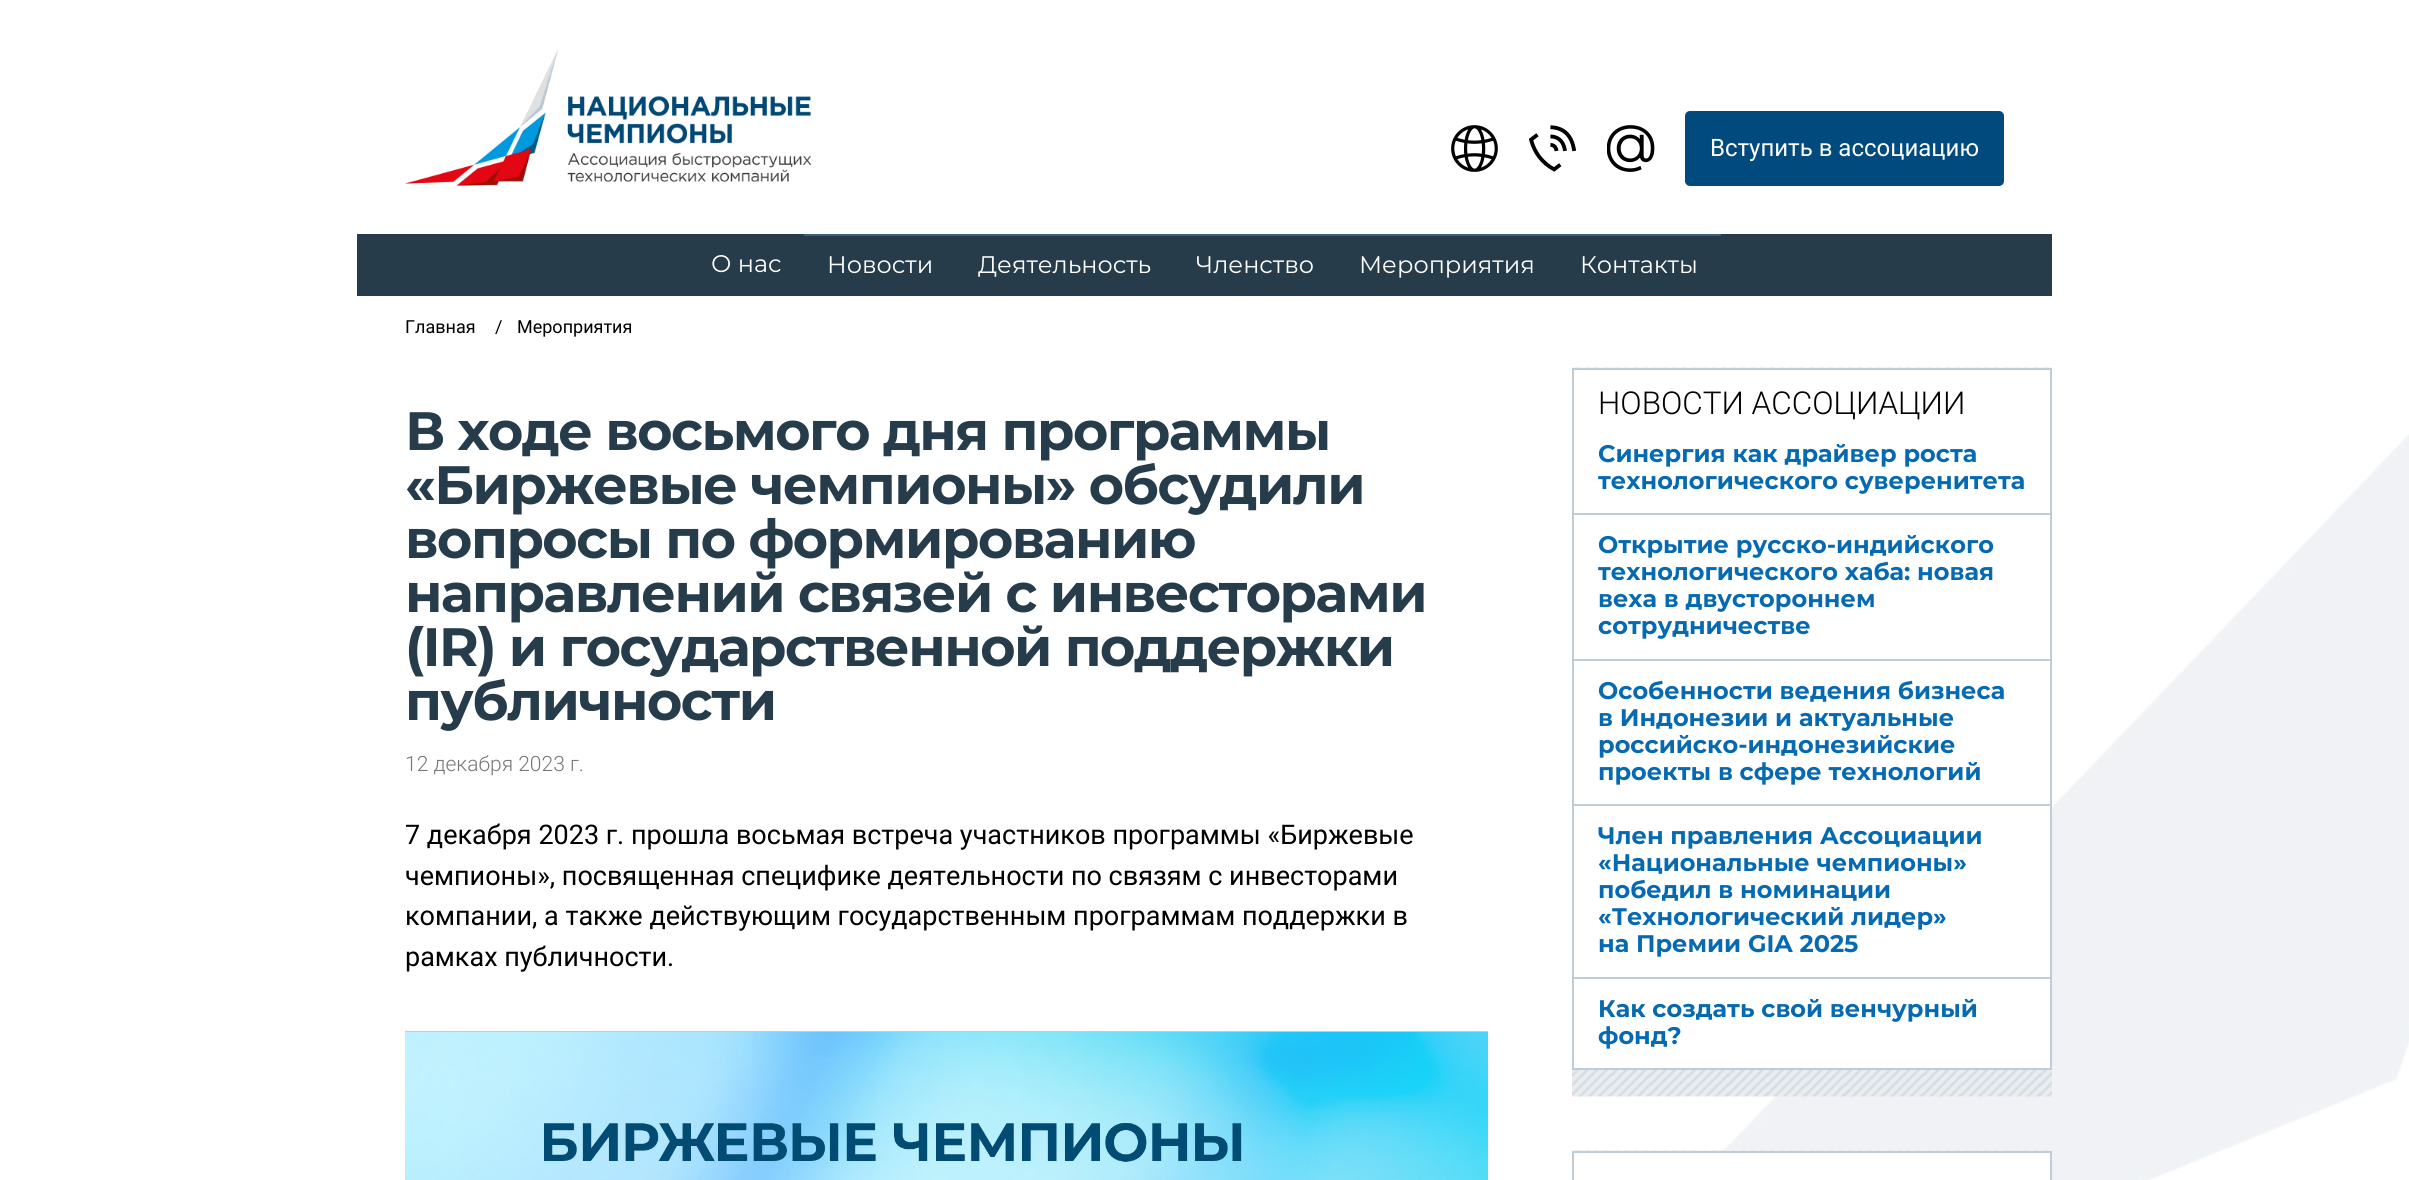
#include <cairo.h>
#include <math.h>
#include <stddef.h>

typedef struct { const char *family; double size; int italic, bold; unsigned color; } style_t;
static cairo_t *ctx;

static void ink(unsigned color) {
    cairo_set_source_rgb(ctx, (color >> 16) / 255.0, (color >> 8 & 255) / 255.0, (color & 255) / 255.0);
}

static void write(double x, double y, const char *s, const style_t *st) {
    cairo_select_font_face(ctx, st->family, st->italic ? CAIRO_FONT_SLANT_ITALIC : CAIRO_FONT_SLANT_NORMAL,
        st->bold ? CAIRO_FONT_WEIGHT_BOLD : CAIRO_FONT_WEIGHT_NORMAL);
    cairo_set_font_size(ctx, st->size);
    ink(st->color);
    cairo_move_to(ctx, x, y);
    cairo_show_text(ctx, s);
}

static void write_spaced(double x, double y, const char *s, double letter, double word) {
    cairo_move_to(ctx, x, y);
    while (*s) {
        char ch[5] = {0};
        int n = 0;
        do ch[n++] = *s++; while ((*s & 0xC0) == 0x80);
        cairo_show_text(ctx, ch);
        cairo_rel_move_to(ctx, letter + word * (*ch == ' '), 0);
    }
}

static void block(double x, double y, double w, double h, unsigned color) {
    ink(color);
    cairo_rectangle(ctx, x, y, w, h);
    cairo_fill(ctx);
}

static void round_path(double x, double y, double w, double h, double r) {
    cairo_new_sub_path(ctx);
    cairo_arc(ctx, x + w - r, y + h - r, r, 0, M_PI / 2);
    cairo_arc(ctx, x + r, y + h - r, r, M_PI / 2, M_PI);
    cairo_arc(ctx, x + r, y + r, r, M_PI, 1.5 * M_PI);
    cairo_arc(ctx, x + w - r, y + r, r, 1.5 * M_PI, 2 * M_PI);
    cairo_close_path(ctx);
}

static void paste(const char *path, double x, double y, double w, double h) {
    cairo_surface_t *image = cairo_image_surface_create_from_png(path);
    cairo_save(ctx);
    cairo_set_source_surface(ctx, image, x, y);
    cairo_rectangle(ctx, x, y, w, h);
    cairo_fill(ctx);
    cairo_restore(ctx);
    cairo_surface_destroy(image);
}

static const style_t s1 = {"Roboto", 24, 0, 0, 0xffffff};
static const style_t s2 = {"Montserrat", 24, 0, 0, 0xffffff};
static const style_t s3 = {"Roboto", 18, 0, 0, 0x000000};
static const style_t s4 = {"Roboto Light", 21, 0, 0, 0x777777};
static const style_t s5 = {"Roboto", 27, 0, 0, 0x000000};
static const style_t s6 = {"Roboto Light", 31.5, 0, 0, 0x000000};
static const style_t s7 = {"Montserrat", 24, 0, 1, 0x056ab2};

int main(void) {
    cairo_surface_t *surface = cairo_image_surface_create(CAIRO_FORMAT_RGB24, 2409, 1180);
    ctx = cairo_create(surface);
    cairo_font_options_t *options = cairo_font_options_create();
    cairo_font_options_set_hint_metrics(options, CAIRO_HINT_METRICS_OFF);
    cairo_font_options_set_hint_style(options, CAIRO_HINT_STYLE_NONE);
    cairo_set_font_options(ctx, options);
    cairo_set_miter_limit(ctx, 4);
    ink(0xffffff);
    cairo_paint(ctx);
    paste("pic1.png", 1695, 434, 714, 746);
    paste("pic2.png", 405, 48, 407, 138);
    paste("pic3.png", 1451, 125, 47, 47);
    paste("pic4.png", 1529, 125, 48, 47);
    paste("pic5.png", 1607, 125, 48, 47);
    ink(0x014a7d);
    round_path(1685, 111, 319, 75, 5);
    cairo_fill(ctx);
    write(1710, 156, "Вступить в ассоциацию", &s1);
    block(357, 234, 1695, 62, 0x263c4a);
    write(711, 272, "О нас", &s2);
    block(804, 234, 917, 2, 0x3f6075);
    write(827, 273, "Новости", &s2);
    write(978, 273, "Деятельность", &s2);
    write(1196, 273, "Членство", &s2);
    write(1359, 273, "Мероприятия", &s2);
    write(1580, 273, "Контакты", &s2);
    write(405, 333, "Главная", &s3);
    write(495, 333, "/", &s3);
    write(517, 333, "Мероприятия", &s3);
    cairo_select_font_face(ctx, "Montserrat", CAIRO_FONT_SLANT_NORMAL, CAIRO_FONT_WEIGHT_BOLD);
    cairo_set_font_size(ctx, 54);
    ink(0x263c4a);
    write_spaced(405, 450, "В ходе восьмого дня программы", -1.5, 0);
    write_spaced(405, 504, "«Биржевые чемпионы» обсудили", -1.5, 0);
    write_spaced(405, 558, "вопросы по формированию", -1.5, 0);
    write_spaced(405, 612, "направлений связей с инвесторами", -1.5, 0);
    write_spaced(405, 666, "(IR) и государственной поддержки", -1.5, 0);
    write_spaced(405, 720, "публичности", -1.5, 0);
    write(405, 771, "12 декабря 2023 г.", &s4);
    write(405, 844, "7 декабря 2023 г. прошла восьмая встреча участников программы «Биржевые", &s5);
    write(405, 885, "чемпионы», посвященная специфике деятельности по связям с инвесторами", &s5);
    write(405, 925, "компании, а также действующим государственным программам поддержки в", &s5);
    write(405, 966, "рамках публичности.", &s5);
    block(405, 1031, 1083, 1, 0xc3cbd0);
    paste("pic6.png", 405, 1032, 1083, 148);
    paste("pic7.png", 1572, 367, 480, 730);
    ink(0xffffff);
    cairo_rectangle(ctx, 1573, 369, 478, 700);
    cairo_fill_preserve(ctx);
    ink(0xbfcdd8);
    cairo_stroke(ctx);
    write(1598, 414, "НОВОСТИ АССОЦИАЦИИ", &s6);
    write(1598, 462, "Синергия как драйвер роста", &s7);
    write(1598, 489, "технологического суверенитета", &s7);
    block(1574, 513, 477, 2, 0xbfcdd8);
    write(1598, 553, "Открытие русско-индийского", &s7);
    write(1598, 580, "технологического хаба: новая", &s7);
    write(1598, 607, "веха в двустороннем", &s7);
    write(1598, 634, "сотрудничестве", &s7);
    block(1574, 659, 477, 2, 0xbfcdd8);
    write(1598, 699, "Особенности ведения бизнеса", &s7);
    write(1598, 726, "в Индонезии и актуальные", &s7);
    write(1598, 753, "российско-индонезийские", &s7);
    write(1598, 780, "проекты в сфере технологий", &s7);
    block(1574, 804, 477, 2, 0xbfcdd8);
    write(1598, 844, "Член правления Ассоциации", &s7);
    write(1598, 871, "«Национальные чемпионы»", &s7);
    write(1598, 898, "победил в номинации", &s7);
    write(1598, 925, "«Технологический лидер»", &s7);
    write(1598, 952, "на Премии GIA 2025", &s7);
    block(1574, 977, 477, 2, 0xbfcdd8);
    write(1598, 1017, "Как создать свой венчурный", &s7);
    write(1598, 1044, "фонд?", &s7);
    paste("pic8.png", 1572, 1150, 480, 1);
    block(1695, 1153, 355, 27, 0xffffff);
    cairo_rectangle(ctx, 1573, 1152, 478, 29);
    ink(0xbfcdd8);
    cairo_stroke(ctx);
    cairo_surface_write_to_png(surface, "screenshot.png");
    cairo_font_options_destroy(options);
    cairo_destroy(ctx);
    cairo_surface_destroy(surface);
    return 0;
}
